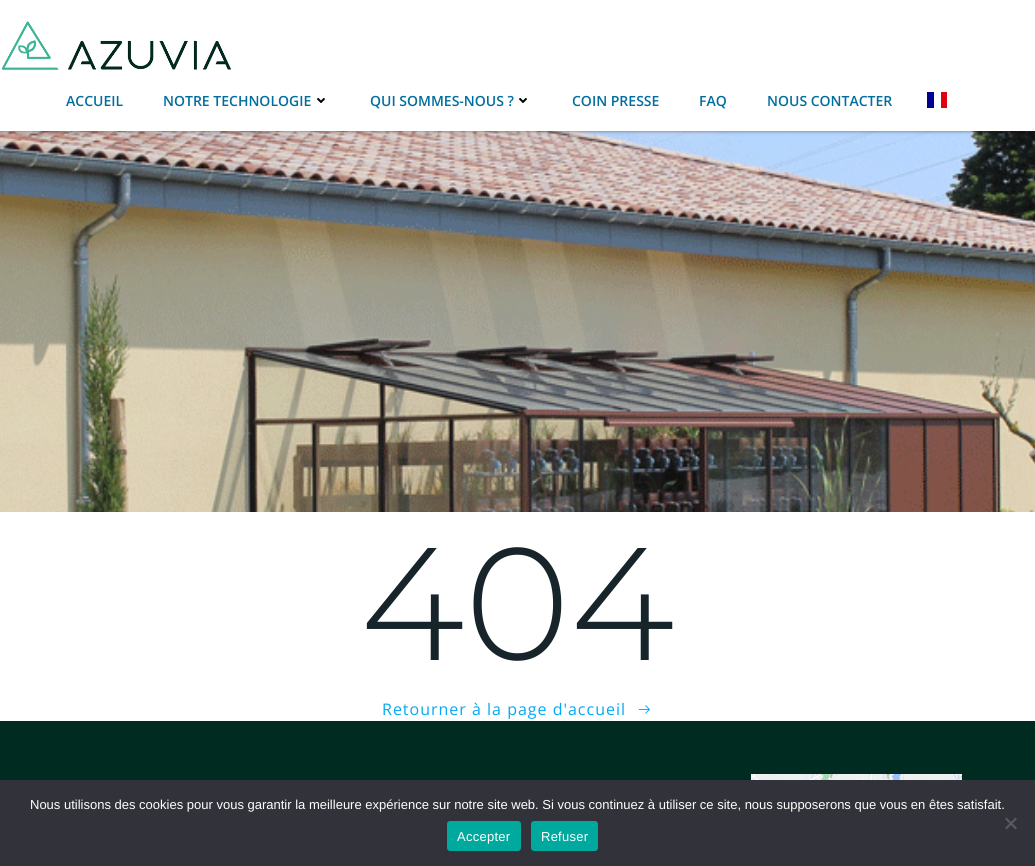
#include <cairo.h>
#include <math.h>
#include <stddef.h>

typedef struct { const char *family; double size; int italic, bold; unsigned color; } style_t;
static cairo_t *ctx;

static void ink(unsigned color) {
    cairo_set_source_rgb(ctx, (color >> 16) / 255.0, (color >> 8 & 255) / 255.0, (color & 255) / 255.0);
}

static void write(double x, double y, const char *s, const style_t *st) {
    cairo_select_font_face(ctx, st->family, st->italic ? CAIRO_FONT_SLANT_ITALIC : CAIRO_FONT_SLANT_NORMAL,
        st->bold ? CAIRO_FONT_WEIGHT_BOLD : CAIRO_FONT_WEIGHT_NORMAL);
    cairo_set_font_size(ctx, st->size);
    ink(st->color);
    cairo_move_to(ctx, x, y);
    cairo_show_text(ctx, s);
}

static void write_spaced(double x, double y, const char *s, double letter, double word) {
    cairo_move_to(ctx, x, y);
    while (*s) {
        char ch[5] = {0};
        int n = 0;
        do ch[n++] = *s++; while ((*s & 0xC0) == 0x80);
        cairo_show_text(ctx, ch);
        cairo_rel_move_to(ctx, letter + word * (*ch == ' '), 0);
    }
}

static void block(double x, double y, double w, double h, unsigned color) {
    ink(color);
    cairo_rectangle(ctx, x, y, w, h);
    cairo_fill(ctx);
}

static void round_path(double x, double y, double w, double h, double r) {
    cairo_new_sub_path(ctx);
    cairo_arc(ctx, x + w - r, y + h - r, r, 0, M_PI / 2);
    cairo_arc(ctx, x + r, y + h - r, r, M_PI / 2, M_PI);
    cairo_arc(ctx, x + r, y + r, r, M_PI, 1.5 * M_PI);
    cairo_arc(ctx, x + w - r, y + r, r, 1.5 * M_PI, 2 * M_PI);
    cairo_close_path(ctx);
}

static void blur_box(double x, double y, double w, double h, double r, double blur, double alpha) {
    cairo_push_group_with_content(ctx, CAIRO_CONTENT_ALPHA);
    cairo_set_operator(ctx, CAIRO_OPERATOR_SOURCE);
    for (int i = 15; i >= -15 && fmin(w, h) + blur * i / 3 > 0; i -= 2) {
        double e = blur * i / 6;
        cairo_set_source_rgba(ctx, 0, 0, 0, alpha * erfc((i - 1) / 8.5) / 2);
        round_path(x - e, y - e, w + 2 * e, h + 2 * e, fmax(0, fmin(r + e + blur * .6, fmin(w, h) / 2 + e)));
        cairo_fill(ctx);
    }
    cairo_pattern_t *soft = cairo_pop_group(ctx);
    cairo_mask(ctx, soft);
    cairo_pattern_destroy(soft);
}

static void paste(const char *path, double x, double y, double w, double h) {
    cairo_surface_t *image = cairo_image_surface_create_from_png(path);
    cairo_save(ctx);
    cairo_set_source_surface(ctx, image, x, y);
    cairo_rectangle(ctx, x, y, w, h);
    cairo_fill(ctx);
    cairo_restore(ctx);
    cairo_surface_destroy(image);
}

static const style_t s1 = {"Open Sans SemiBold", 14, 0, 0, 0x026e9f};
static const style_t s2 = {"Montserrat Light", 160, 0, 0, 0x17252a};
static const style_t s3 = {"Liberation Sans", 13, 0, 0, 0xffffff};

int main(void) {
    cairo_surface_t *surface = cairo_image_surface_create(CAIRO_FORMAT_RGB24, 1035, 866);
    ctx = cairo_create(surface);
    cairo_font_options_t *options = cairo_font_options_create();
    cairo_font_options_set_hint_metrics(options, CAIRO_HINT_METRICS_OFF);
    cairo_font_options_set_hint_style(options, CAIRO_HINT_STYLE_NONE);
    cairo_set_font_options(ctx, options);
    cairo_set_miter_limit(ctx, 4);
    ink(0xffffff);
    cairo_paint(ctx);
    paste("pic3.png", 0, 131, 1035, 381);
    ink(0x000000);
    blur_box(0, 0, 1035, 131, 0, 2, 0.5);
    block(0, 0, 1035, 131, 0xffffff);
    paste("pic1.png", 1, 21, 230, 49);
    write(66, 106, "ACCUEIL", &s1);
    write(163, 106, "NOTRE TECHNOLOGIE", &s1);
    paste("pic2.png", 317, 98, 8, 5);
    write(370, 106, "QUI SOMMES-NOUS ?", &s1);
    paste("pic2.png", 519, 98, 8, 5);
    write(572, 106, "COIN PRESSE", &s1);
    write(699, 106, "FAQ", &s1);
    write(767, 106, "NOUS CONTACTER", &s1);
    block(927, 92, 7, 16, 0x000091);
    block(941, 92, 6, 16, 0xe1000f);
    write(360, 660, "404", &s2);
    cairo_select_font_face(ctx, "Open Sans", CAIRO_FONT_SLANT_NORMAL, CAIRO_FONT_WEIGHT_NORMAL);
    cairo_set_font_size(ctx, 16);
    ink(0x03a9f4);
    write_spaced(382, 715, "Retourner à la page d'accueil", 1, 0);
    paste("pic4.png", 638, 705, 12, 9);
    block(0, 721, 1035, 59, 0x002b21);
    paste("pic5.png", 751, 774, 211, 6);
    block(0, 780, 1035, 86, 0x32323a);
    write(30, 809, "Nous utilisons des cookies pour vous garantir la meilleure expérience sur notre site web. Si vous continuez à utiliser ce site, nous supposerons que vous en êtes satisfait.", &s3);
    ink(0x59595d);
    cairo_new_path(ctx);
    cairo_move_to(ctx, 1015.5, 817.5);
    cairo_line_to(ctx, 1017, 819);
    cairo_line_to(ctx, 1006.5, 829.5);
    cairo_line_to(ctx, 1005, 828);
    cairo_close_path(ctx);
    cairo_fill(ctx);
    cairo_new_path(ctx);
    cairo_move_to(ctx, 1005, 819);
    cairo_line_to(ctx, 1006.5, 817.5);
    cairo_line_to(ctx, 1017, 828);
    cairo_line_to(ctx, 1015.5, 829.5);
    cairo_close_path(ctx);
    cairo_fill(ctx);
    ink(0x00a99d);
    round_path(447, 821, 74, 30, 3);
    cairo_fill(ctx);
    ink(0xffffff);
    write_spaced(457, 841, "Accepter", 0.25, 0);
    ink(0x00a99d);
    round_path(531, 821, 67, 30, 3);
    cairo_fill(ctx);
    ink(0xffffff);
    write_spaced(541, 841, "Refuser", 0.25, 0);
    cairo_surface_write_to_png(surface, "screenshot.png");
    cairo_font_options_destroy(options);
    cairo_destroy(ctx);
    cairo_surface_destroy(surface);
    return 0;
}
